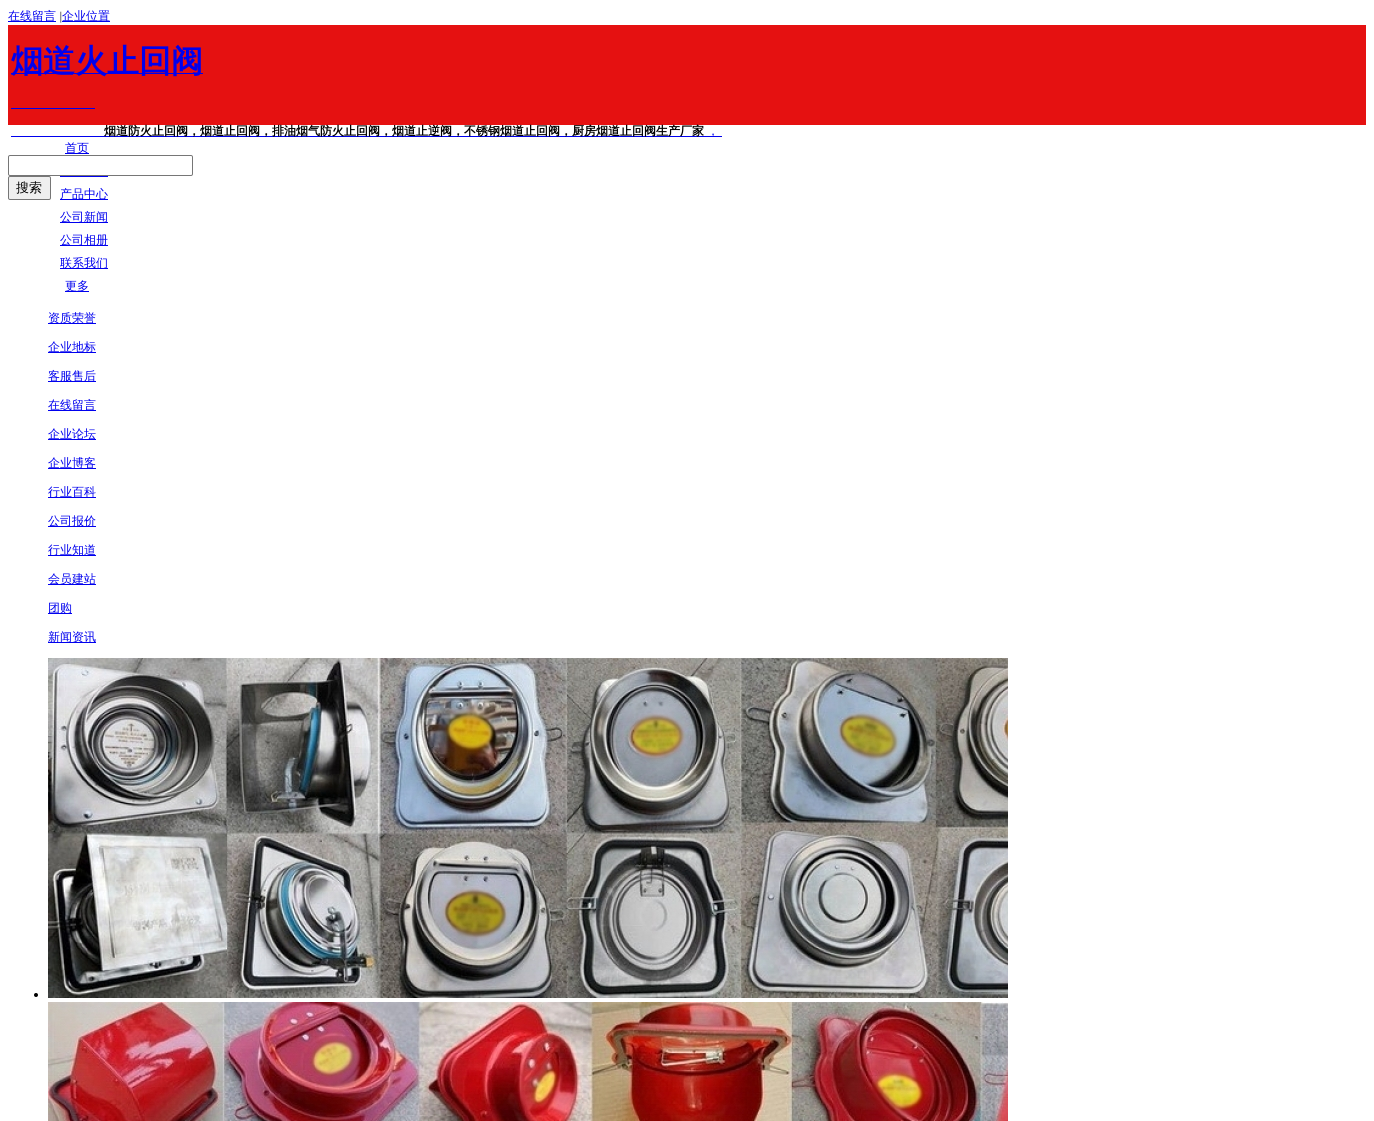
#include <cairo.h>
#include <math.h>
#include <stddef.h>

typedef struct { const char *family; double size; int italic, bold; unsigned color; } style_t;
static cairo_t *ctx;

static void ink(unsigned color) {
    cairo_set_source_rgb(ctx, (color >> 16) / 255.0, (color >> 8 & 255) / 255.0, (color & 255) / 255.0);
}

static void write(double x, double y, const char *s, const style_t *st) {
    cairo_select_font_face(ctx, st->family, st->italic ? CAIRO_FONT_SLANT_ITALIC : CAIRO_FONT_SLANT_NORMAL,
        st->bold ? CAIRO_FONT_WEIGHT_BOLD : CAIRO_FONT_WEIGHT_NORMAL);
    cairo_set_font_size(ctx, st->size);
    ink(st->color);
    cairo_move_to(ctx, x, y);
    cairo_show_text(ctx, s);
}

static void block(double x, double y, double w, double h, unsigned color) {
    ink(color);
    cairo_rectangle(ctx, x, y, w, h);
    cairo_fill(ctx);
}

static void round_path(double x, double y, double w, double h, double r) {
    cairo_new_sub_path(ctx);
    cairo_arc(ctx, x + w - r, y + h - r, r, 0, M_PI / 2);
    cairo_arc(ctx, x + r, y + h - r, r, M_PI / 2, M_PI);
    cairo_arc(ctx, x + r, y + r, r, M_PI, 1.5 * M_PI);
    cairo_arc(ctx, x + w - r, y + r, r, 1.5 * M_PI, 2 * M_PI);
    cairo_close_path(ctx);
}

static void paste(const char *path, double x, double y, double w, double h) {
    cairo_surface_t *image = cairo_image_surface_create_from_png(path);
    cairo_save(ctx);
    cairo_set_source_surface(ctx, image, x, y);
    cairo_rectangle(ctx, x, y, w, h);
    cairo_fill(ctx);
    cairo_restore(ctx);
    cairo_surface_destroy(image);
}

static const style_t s1 = {"WenQuanYi Zen Hei Medium", 12, 0, 0, 0x0000ee};
static const style_t s2 = {"Liberation Serif", 12, 1, 0, 0x000000};
static const style_t s3 = {"WenQuanYi Zen Hei", 32, 0, 1, 0x0000ee};
static const style_t s4 = {"WenQuanYi Zen Hei", 12, 0, 1, 0x000000};
static const style_t s5 = {"WenQuanYi Zen Hei Medium", 13, 0, 0, 0x000000};

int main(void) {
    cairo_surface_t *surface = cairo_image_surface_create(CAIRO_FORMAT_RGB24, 1374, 1121);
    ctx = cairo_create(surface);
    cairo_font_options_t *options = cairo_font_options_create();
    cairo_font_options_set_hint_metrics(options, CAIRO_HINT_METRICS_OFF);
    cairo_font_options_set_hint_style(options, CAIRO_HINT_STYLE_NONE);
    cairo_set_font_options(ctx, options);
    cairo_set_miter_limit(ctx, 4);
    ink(0xffffff);
    cairo_paint(ctx);
    block(8, 21, 48, 1, 0x0000ee);
    write(8, 20, "在线留言", &s1);
    write(59, 20, "|", &s2);
    block(62, 21, 48, 1, 0x0000ee);
    write(62, 20, "企业位置", &s1);
    block(8, 25, 1358, 100, 0xe51111);
    block(11, 73, 192, 1, 0x0000ee);
    write(11, 72, "烟道火止回阀", &s3);
    block(11, 108, 84, 1, 0x0000ee);
    block(11, 136, 711, 1, 0x0000ee);
    write(104, 135, "烟道防火止回阀，烟道止回阀，排油烟气防火止回阀，烟道止逆阀，不锈钢烟道止回阀，厨房烟道止回阀生产厂家", &s4);
    write(707, 135, "，", &s1);
    round_path(8.5, 155.5, 184, 20, 1.5);
    ink(0x767676);
    cairo_set_line_width(ctx, 1);
    cairo_stroke(ctx);
    ink(0xefefef);
    round_path(8.5, 176.5, 42, 23, 1.5);
    cairo_fill_preserve(ctx);
    ink(0x767676);
    cairo_stroke(ctx);
    write(16, 192, "搜索", &s5);
    block(65, 153, 24, 1, 0x0000ee);
    write(65, 152, "首页", &s1);
    block(60, 176, 48, 1, 0x0000ee);
    block(60, 199, 48, 1, 0x0000ee);
    write(60, 198, "产品中心", &s1);
    block(60, 222, 48, 1, 0x0000ee);
    write(60, 221, "公司新闻", &s1);
    block(60, 245, 48, 1, 0x0000ee);
    write(60, 244, "公司相册", &s1);
    block(60, 268, 48, 1, 0x0000ee);
    write(60, 267, "联系我们", &s1);
    block(65, 291, 24, 1, 0x0000ee);
    write(65, 290, "更多", &s1);
    block(48, 323, 48, 1, 0x0000ee);
    write(48, 322, "资质荣誉", &s1);
    block(48, 352, 48, 1, 0x0000ee);
    write(48, 351, "企业地标", &s1);
    block(48, 381, 48, 1, 0x0000ee);
    write(48, 380, "客服售后", &s1);
    block(48, 410, 48, 1, 0x0000ee);
    write(48, 409, "在线留言", &s1);
    block(48, 439, 48, 1, 0x0000ee);
    write(48, 438, "企业论坛", &s1);
    block(48, 468, 48, 1, 0x0000ee);
    write(48, 467, "企业博客", &s1);
    block(48, 497, 48, 1, 0x0000ee);
    write(48, 496, "行业百科", &s1);
    block(48, 526, 48, 1, 0x0000ee);
    write(48, 525, "公司报价", &s1);
    block(48, 555, 48, 1, 0x0000ee);
    write(48, 554, "行业知道", &s1);
    block(48, 584, 48, 1, 0x0000ee);
    write(48, 583, "会员建站", &s1);
    block(48, 613, 24, 1, 0x0000ee);
    write(48, 612, "团购", &s1);
    block(48, 642, 48, 1, 0x0000ee);
    write(48, 641, "新闻资讯", &s1);
    ink(0x000000);
    cairo_new_path(ctx);
    cairo_arc(ctx, 36, 995, 2, 0, 2 * M_PI);
    cairo_fill(ctx);
    paste("pic1.png", 48, 658, 960, 340);
    paste("pic2.png", 48, 1002, 960, 119);
    cairo_surface_write_to_png(surface, "screenshot.png");
    cairo_font_options_destroy(options);
    cairo_destroy(ctx);
    cairo_surface_destroy(surface);
    return 0;
}
